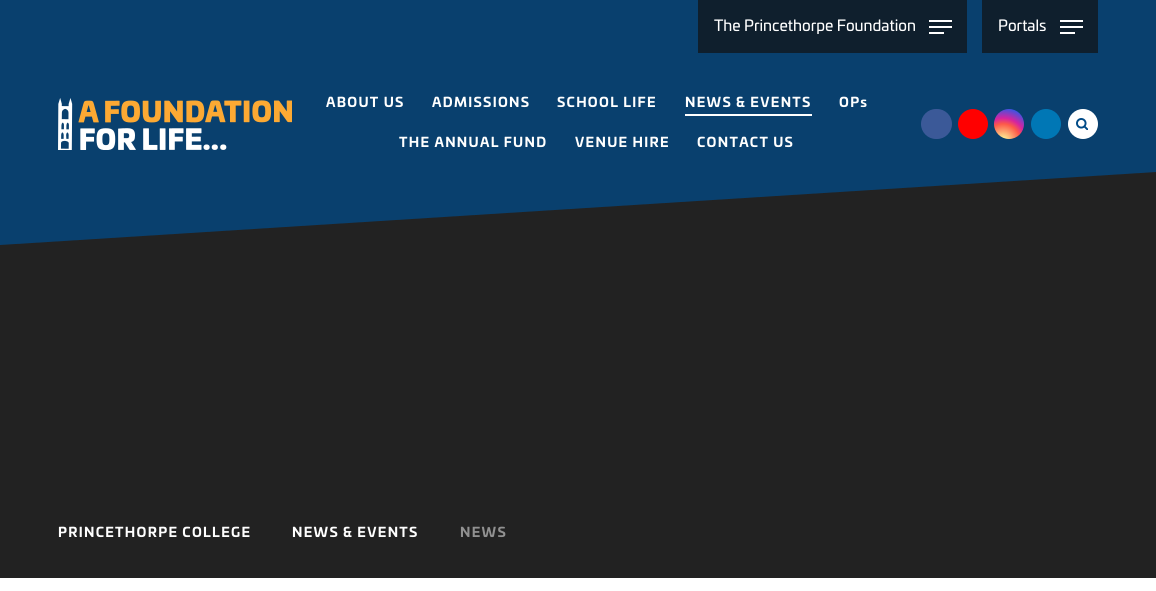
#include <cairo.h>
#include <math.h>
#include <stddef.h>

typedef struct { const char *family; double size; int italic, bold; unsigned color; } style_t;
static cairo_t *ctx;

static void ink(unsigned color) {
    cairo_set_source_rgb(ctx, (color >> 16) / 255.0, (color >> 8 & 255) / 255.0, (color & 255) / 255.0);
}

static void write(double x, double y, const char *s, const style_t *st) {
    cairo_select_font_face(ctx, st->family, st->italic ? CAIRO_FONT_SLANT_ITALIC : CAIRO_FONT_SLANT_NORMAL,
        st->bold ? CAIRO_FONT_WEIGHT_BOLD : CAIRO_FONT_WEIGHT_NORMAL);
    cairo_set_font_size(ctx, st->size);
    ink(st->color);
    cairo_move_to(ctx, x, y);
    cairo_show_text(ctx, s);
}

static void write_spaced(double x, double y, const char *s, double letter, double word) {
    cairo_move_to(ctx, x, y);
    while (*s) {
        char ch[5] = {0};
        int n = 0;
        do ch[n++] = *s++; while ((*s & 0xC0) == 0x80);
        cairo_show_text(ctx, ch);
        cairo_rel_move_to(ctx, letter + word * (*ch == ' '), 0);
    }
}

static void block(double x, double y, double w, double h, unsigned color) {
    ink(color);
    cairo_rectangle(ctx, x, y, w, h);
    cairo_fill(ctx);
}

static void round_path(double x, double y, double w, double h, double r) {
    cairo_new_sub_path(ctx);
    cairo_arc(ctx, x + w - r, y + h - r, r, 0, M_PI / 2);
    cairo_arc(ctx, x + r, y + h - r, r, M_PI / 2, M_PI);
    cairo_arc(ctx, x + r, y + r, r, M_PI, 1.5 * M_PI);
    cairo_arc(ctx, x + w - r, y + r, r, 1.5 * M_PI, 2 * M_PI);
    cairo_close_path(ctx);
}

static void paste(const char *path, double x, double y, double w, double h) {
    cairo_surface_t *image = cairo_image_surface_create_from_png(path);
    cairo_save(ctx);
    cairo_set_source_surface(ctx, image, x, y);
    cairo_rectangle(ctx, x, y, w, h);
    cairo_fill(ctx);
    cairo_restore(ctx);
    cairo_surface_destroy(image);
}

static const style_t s1 = {"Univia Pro", 15.25, 0, 0, 0xffffff};

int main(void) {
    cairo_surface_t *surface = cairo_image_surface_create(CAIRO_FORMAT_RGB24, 1156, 591);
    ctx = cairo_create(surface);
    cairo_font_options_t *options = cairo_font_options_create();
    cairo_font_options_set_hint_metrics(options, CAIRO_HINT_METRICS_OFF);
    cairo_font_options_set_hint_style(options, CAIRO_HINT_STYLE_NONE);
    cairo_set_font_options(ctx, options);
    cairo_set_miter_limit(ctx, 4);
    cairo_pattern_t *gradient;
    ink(0x222222);
    cairo_paint(ctx);
    ink(0x09406e);
    cairo_new_path(ctx);
    cairo_move_to(ctx, 0, 0);
    cairo_line_to(ctx, 0, 245);
    cairo_line_to(ctx, 1156, 172);
    cairo_line_to(ctx, 1156, 0);
    cairo_close_path(ctx);
    cairo_fill(ctx);
    block(698, 0, 269, 53, 0x0f1f2d);
    write(714, 31, "The Princethorpe Foundation", &s1);
    block(929, 26, 23, 2, 0xffffff);
    block(929, 20, 23, 2, 0xffffff);
    block(929, 32, 15, 2, 0xffffff);
    block(982, 0, 116, 53, 0x0f1f2d);
    write(998, 31, "Portals", &s1);
    block(1060, 26, 23, 2, 0xffffff);
    block(1060, 20, 23, 2, 0xffffff);
    block(1060, 32, 15, 2, 0xffffff);
    paste("pic1.png", 58, 98, 234, 52);
    cairo_select_font_face(ctx, "Univia Pro", CAIRO_FONT_SLANT_NORMAL, CAIRO_FONT_WEIGHT_BOLD);
    cairo_set_font_size(ctx, 13.25);
    write_spaced(326, 107, "ABOUT US", 1.3, 0);
    write_spaced(432, 107, "ADMISSIONS", 1.3, 0);
    write_spaced(557, 107, "SCHOOL LIFE", 1.3, 0);
    write_spaced(685, 107, "NEWS & EVENTS", 1.3, 0);
    block(685, 114, 127, 2, 0xffffff);
    write_spaced(839, 107, "OPs", 1.3, 0);
    write_spaced(399, 147, "THE ANNUAL FUND", 1.3, 0);
    write_spaced(575, 147, "VENUE HIRE", 1.3, 0);
    write_spaced(697, 147, "CONTACT US", 1.3, 0);
    ink(0x3b5998);
    round_path(921, 109, 31, 30, 15);
    cairo_fill(ctx);
    ink(0xff0000);
    cairo_arc(ctx, 973, 124, 15, 0, 2 * M_PI);
    cairo_fill(ctx);
    gradient = cairo_pattern_create_radial(1003, 141, 0, 1003, 141, 38);
    cairo_pattern_add_color_stop_rgba(gradient, 0, 0.992, 0.957, 0.592, 1);
    cairo_pattern_add_color_stop_rgba(gradient, 0.05, 0.992, 0.957, 0.592, 1);
    cairo_pattern_add_color_stop_rgba(gradient, 0.45, 0.992, 0.349, 0.286, 1);
    cairo_pattern_add_color_stop_rgba(gradient, 0.6, 0.839, 0.141, 0.624, 1);
    cairo_pattern_add_color_stop_rgba(gradient, 0.9, 0.157, 0.353, 0.922, 1);
    cairo_set_source(ctx, gradient);
    cairo_pattern_destroy(gradient);
    cairo_arc(ctx, 1009, 124, 15, 0, 2 * M_PI);
    cairo_fill(ctx);
    ink(0x0077b5);
    cairo_arc(ctx, 1046, 124, 15, 0, 2 * M_PI);
    cairo_fill(ctx);
    ink(0xffffff);
    cairo_arc(ctx, 1083, 124, 15, 0, 2 * M_PI);
    cairo_fill(ctx);
    paste("pic2.png", 1076, 118, 12, 12);
    write_spaced(58, 537, "PRINCETHORPE COLLEGE", 1.3, 0);
    write_spaced(292, 537, "NEWS & EVENTS", 1.3, 0);
    ink(0x919191);
    write_spaced(460, 537, "NEWS", 1.3, 0);
    block(0, 578, 1156, 13, 0xffffff);
    cairo_surface_write_to_png(surface, "screenshot.png");
    cairo_font_options_destroy(options);
    cairo_destroy(ctx);
    cairo_surface_destroy(surface);
    return 0;
}
